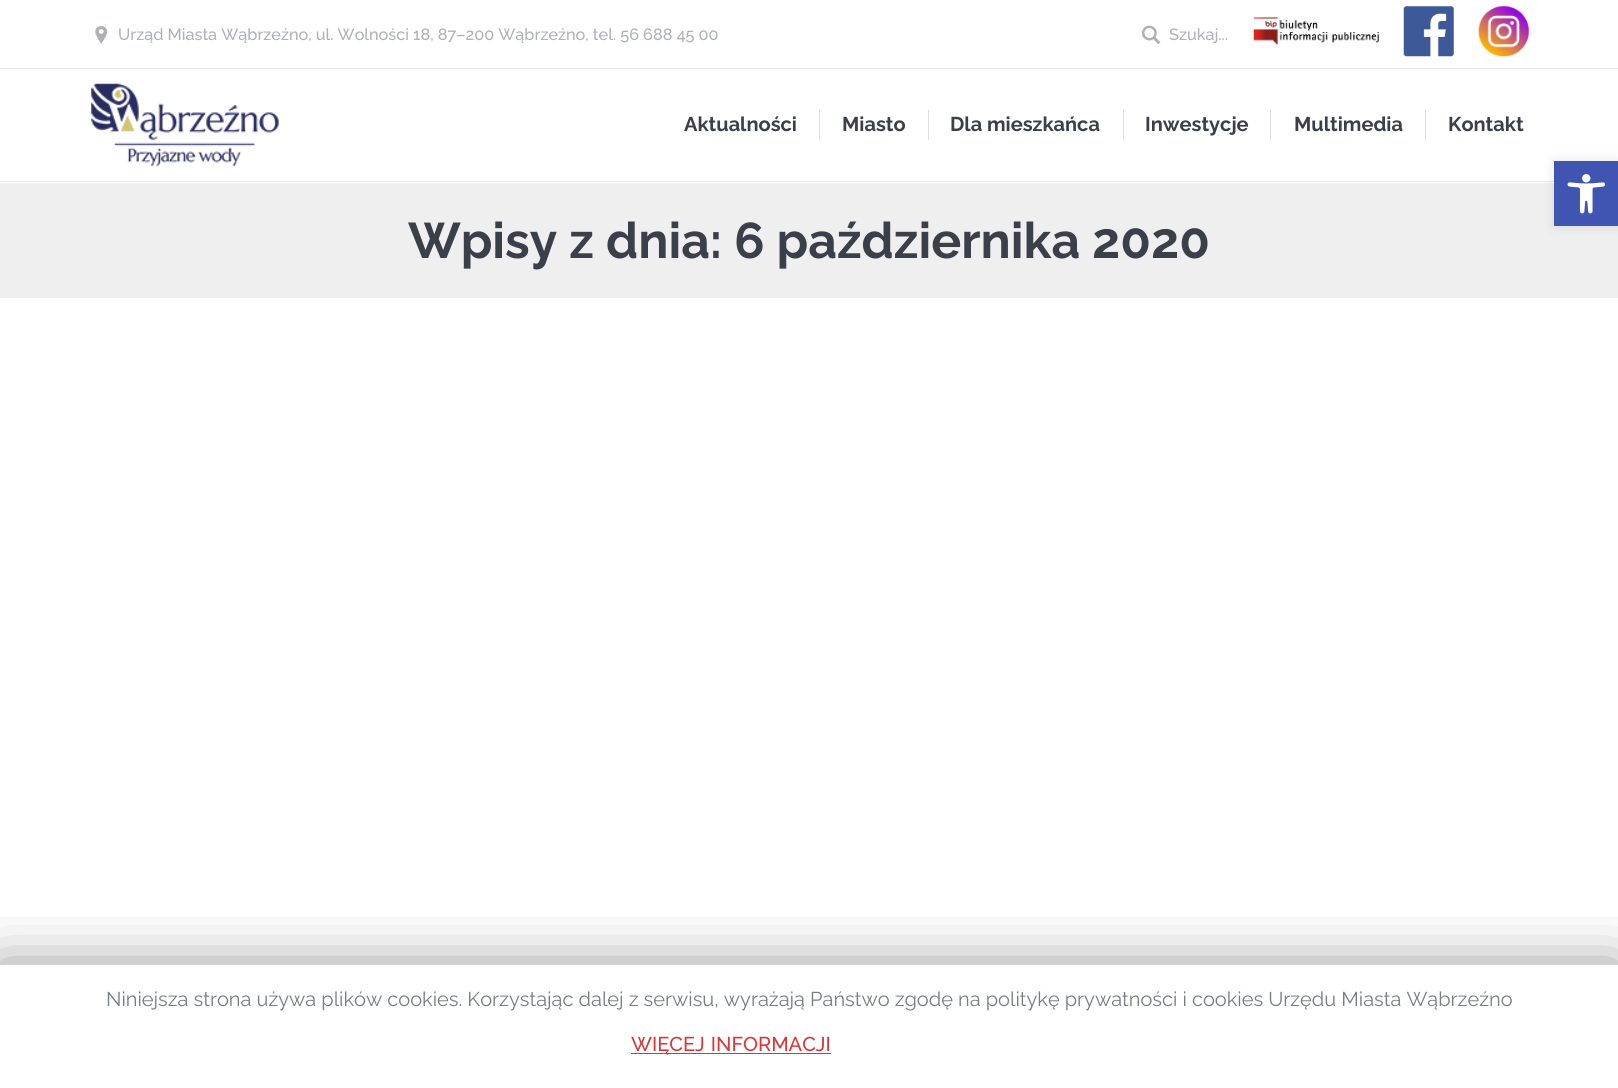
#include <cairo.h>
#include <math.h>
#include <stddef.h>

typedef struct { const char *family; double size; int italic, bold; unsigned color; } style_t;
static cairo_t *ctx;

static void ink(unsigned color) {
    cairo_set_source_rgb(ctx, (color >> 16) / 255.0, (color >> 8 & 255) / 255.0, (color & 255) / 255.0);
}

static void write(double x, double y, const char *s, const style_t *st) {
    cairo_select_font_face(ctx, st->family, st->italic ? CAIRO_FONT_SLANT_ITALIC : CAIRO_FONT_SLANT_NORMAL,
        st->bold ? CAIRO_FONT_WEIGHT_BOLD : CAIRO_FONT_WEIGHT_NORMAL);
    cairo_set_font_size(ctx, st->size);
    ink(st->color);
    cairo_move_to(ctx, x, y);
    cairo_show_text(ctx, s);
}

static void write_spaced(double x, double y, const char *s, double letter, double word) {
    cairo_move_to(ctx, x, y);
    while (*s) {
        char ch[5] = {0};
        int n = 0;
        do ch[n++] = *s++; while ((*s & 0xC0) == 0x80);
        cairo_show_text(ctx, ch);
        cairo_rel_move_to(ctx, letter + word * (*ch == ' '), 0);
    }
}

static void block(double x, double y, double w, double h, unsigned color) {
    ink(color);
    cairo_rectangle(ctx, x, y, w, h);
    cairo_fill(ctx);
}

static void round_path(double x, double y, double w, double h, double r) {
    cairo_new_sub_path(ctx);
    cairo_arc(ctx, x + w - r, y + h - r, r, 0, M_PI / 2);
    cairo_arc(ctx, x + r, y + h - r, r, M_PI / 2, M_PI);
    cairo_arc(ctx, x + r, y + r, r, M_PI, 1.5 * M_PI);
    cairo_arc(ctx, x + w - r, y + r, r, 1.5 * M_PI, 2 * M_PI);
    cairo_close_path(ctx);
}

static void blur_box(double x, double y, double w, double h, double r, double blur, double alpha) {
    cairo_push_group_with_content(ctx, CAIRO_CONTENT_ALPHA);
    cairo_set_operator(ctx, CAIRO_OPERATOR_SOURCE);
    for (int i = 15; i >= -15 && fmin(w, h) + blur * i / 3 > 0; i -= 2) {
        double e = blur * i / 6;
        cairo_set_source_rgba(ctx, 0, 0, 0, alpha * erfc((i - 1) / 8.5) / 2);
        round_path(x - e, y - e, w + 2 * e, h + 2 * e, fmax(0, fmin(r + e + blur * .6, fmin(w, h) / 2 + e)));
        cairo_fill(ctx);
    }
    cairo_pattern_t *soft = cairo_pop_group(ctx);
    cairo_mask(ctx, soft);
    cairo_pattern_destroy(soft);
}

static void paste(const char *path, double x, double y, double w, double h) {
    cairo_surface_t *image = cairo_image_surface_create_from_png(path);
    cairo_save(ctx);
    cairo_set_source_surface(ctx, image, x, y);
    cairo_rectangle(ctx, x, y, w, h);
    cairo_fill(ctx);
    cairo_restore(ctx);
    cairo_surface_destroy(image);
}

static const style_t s1 = {"Raleway Medium", 16.25, 0, 0, 0xadb0b6};
static const style_t s2 = {"Raleway", 20, 0, 1, 0x3b3f4a};
static const style_t s3 = {"Raleway", 50, 0, 1, 0x3b3f4a};
static const style_t s4 = {"Raleway", 20, 0, 0, 0x787d85};

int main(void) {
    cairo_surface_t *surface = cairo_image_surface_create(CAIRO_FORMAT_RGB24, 1618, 1088);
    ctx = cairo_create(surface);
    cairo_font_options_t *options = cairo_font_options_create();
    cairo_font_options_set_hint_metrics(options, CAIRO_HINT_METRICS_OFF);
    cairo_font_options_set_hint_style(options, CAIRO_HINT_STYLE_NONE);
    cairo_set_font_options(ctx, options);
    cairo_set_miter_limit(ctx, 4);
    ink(0xffffff);
    cairo_paint(ctx);
    block(0, 181, 1554, 1, 0xe6e7e9);
    paste("pic1.png", 95, 26, 13, 18);
    write(118, 40, "Urząd Miasta Wąbrzeźno, ul. Wolności 18, 87–200 Wąbrzeźno, tel. 56 688 45 00", &s1);
    paste("pic2.png", 1141, 25, 20, 19);
    write(1169, 40, "Szukaj...", &s1);
    paste("pic3.png", 1253, 17, 126, 28);
    paste("pic4.png", 1403, 6, 51, 51);
    paste("pic5.png", 1478, 6, 51, 51);
    block(0, 68, 1618, 1, 0xe6e7e9);
    paste("pic6.png", 91, 83, 188, 84);
    write(684, 131, "Aktualności", &s2);
    block(819, 110, 1, 30, 0xdedede);
    write(842, 131, "Miasto", &s2);
    block(928, 110, 1, 30, 0xdedede);
    write(950, 131, "Dla mieszkańca", &s2);
    block(1123, 110, 1, 30, 0xdedede);
    write(1145, 131, "Inwestycje", &s2);
    block(1270, 110, 1, 30, 0xdedede);
    write(1294, 131, "Multimedia", &s2);
    block(1425, 110, 1, 30, 0xdedede);
    write(1448, 131, "Kontakt", &s2);
    block(0, 183, 1618, 115, 0xefefef);
    write(408, 258, "Wpisy z dnia: 6 października 2020", &s3);
    ink(0x000000);
    blur_box(1554, 161, 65, 65, 0, 6, 0.1);
    block(1554, 161, 64, 65, 0x4054b2);
    paste("pic7.png", 1567, 174, 39, 40);
    cairo_save(ctx);
    cairo_rectangle(ctx, 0, 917, 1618, 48);
    cairo_clip(ctx);
    ink(0x000000);
    blur_box(0, 971, 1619, 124, 0, 31, 0.5);
    cairo_restore(ctx);
    write(106, 1006, "Niniejsza strona używa plików cookies. Korzystając dalej z serwisu, wyrażają Państwo zgodę na politykę prywatności i cookies Urzędu Miasta Wąbrzeźno", &s4);
    block(631, 1053, 200, 1, 0xdd3333);
    cairo_select_font_face(ctx, "Raleway Medium", CAIRO_FONT_SLANT_NORMAL, CAIRO_FONT_WEIGHT_NORMAL);
    write_spaced(631, 1051, "WIĘCEJ INFORMACJI", 0, 1);
    cairo_surface_write_to_png(surface, "screenshot.png");
    cairo_font_options_destroy(options);
    cairo_destroy(ctx);
    cairo_surface_destroy(surface);
    return 0;
}
